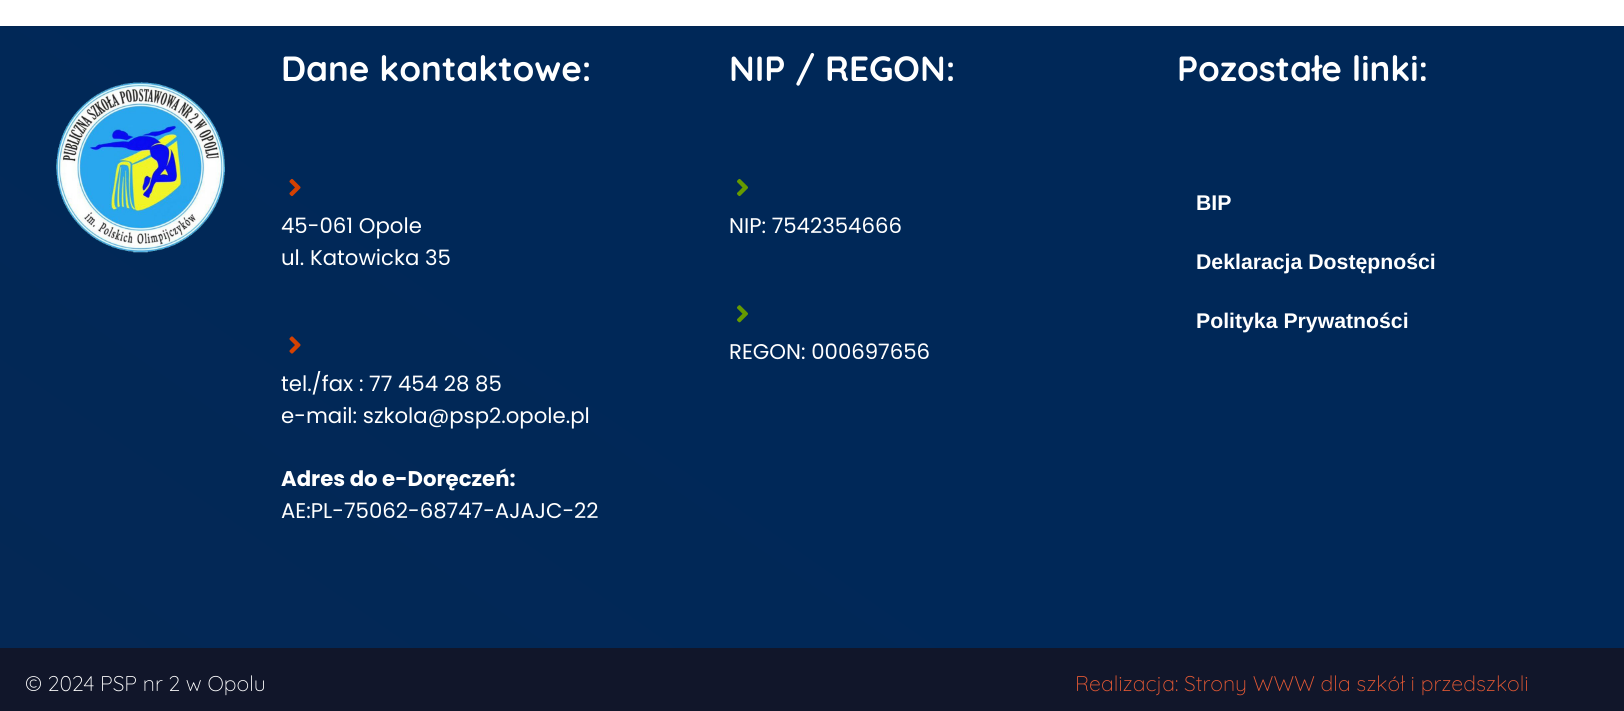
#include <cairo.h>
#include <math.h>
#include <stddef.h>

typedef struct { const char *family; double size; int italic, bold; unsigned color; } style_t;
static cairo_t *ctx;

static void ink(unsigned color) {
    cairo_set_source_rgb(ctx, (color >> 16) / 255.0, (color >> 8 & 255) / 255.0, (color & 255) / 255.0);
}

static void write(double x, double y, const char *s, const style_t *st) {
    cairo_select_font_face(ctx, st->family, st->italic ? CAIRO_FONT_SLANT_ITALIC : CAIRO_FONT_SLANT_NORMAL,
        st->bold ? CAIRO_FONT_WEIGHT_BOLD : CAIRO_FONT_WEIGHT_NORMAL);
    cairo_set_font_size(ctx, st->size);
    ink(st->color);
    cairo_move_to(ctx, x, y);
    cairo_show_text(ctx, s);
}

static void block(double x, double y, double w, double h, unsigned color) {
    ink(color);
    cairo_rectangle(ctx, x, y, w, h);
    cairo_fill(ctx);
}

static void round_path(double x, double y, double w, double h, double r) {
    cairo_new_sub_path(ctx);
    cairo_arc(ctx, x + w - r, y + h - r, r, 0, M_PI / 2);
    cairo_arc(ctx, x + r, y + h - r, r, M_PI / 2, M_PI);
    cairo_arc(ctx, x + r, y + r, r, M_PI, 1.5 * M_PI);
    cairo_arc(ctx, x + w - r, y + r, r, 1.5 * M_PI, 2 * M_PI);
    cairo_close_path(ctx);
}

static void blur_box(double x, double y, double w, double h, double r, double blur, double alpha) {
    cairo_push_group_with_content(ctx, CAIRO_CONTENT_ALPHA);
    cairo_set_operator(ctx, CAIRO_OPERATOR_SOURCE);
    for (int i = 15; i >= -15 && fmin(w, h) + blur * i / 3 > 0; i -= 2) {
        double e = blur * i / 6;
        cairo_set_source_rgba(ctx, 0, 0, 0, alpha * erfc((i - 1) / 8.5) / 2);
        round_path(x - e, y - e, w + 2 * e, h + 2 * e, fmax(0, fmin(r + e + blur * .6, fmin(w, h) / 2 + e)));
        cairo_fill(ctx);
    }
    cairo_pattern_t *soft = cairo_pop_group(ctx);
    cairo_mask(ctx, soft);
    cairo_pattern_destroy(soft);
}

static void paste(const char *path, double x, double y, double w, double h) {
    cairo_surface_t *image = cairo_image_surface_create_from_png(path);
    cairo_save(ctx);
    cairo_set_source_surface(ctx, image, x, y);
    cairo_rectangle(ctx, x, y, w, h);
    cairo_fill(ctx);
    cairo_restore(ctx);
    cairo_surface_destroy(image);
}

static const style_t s1 = {"Quicksand", 35, 0, 1, 0xffffff};
static const style_t s2 = {"Poppins", 21.25, 0, 0, 0xffffff};
static const style_t s3 = {"Poppins", 21.25, 0, 1, 0xffffff};
static const style_t s4 = {"Liberation Sans", 21.25, 0, 1, 0xffffff};
static const style_t s5 = {"Quicksand Light", 21.25, 0, 0, 0xffffff};
static const style_t s6 = {"Quicksand Light", 21.25, 0, 0, 0xe55934};

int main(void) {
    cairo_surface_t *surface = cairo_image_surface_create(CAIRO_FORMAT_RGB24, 1624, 711);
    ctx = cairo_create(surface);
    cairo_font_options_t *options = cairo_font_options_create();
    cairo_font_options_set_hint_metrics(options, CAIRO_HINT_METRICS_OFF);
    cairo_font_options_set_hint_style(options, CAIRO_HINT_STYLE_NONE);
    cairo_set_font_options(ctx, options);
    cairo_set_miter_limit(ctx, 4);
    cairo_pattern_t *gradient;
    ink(0xffffff);
    cairo_paint(ctx);
    gradient = cairo_pattern_create_linear(1240, -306, 385, 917);
    cairo_pattern_add_color_stop_rgba(gradient, 0.59, 0, 0.157, 0.345, 1);
    cairo_pattern_add_color_stop_rgba(gradient, 1, 0.016, 0.157, 0.333, 1);
    cairo_set_source(ctx, gradient);
    cairo_pattern_destroy(gradient);
    cairo_rectangle(ctx, 0, 26, 1624, 622);
    cairo_fill(ctx);
    ink(0x000000);
    blur_box(3, -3, 1620, 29, 0, 1, 0.2);
    block(1, 0, 1623, 26, 0xffffff);
    paste("pic1.png", 56, 82, 169, 171);
    write(281, 81, "Dane kontaktowe:", &s1);
    paste("pic2.png", 289, 178, 12, 19);
    write(281, 233, "45-061 Opole", &s2);
    write(281, 265, "ul. Katowicka 35", &s2);
    paste("pic3.png", 289, 336, 12, 18);
    write(281, 391, "tel./fax : 77 454 28 85", &s2);
    write(281, 423, "e-mail: szkola@psp2.opole.pl", &s2);
    write(281, 486, "Adres do e-Doręczeń:", &s3);
    write(281, 518, "AE:PL-75062-68747-AJAJC-22", &s2);
    write(729, 81, "NIP / REGON:", &s1);
    paste("pic4.png", 737, 178, 11, 19);
    write(729, 233, "NIP: 7542354666", &s2);
    paste("pic5.png", 737, 305, 11, 18);
    write(729, 359, "REGON: 000697656", &s2);
    write(1177, 81, "Pozostałe linki:", &s1);
    write(1196, 210, "BIP", &s4);
    write(1196, 269, "Deklaracja Dostępności", &s4);
    write(1196, 328, "Polityka Prywatności", &s4);
    block(0, 648, 1624, 63, 0x11162a);
    write(25, 691, "© 2024 PSP nr 2 w Opolu", &s5);
    write(1075, 691, "Realizacja: Strony WWW dla szkół i przedszkoli", &s6);
    cairo_surface_write_to_png(surface, "screenshot.png");
    cairo_font_options_destroy(options);
    cairo_destroy(ctx);
    cairo_surface_destroy(surface);
    return 0;
}
